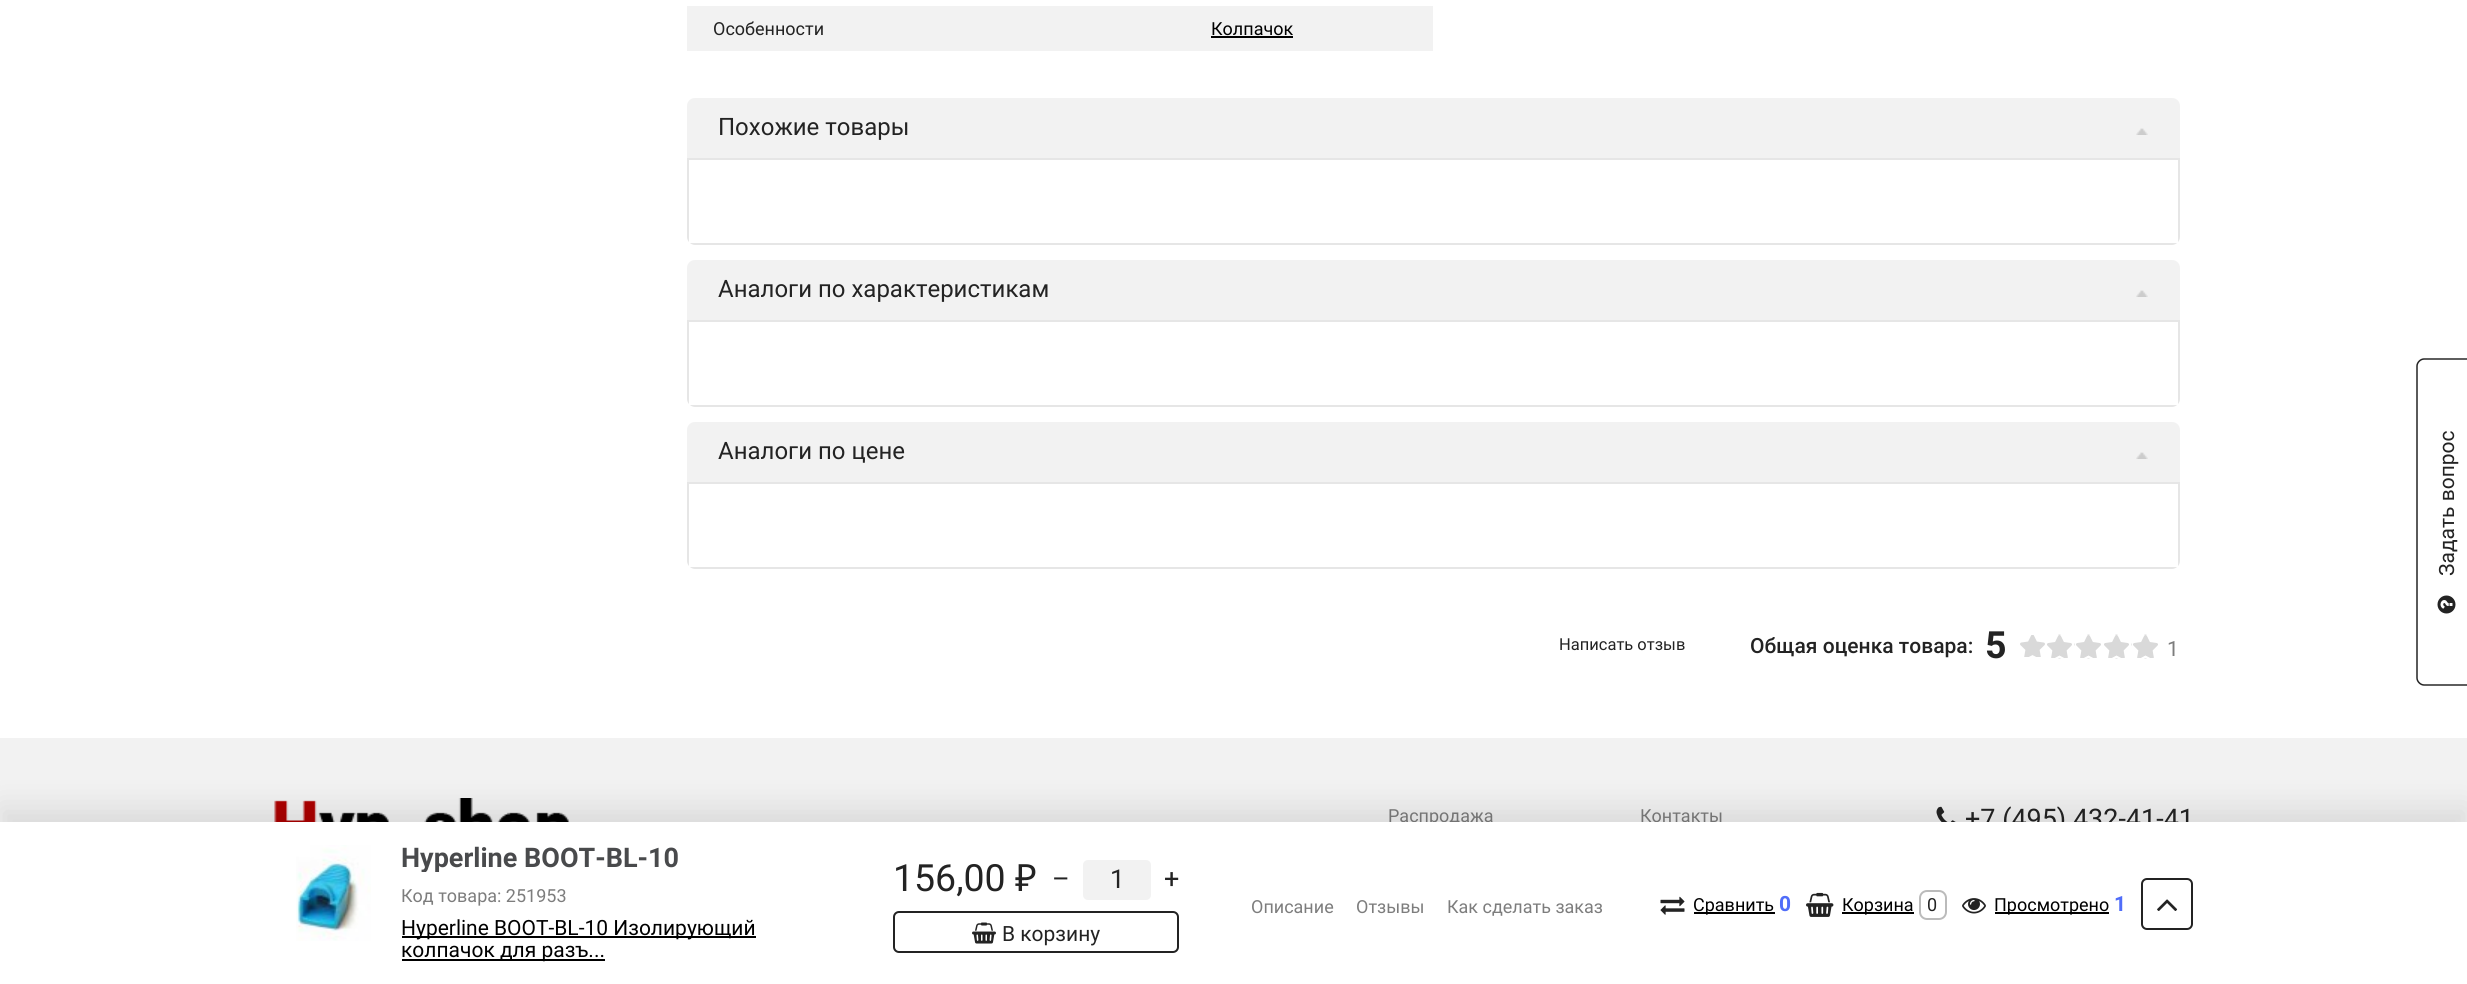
#include <cairo.h>
#include <math.h>
#include <stddef.h>

typedef struct { const char *family; double size; int italic, bold; unsigned color; } style_t;
static cairo_t *ctx;

static void ink(unsigned color) {
    cairo_set_source_rgb(ctx, (color >> 16) / 255.0, (color >> 8 & 255) / 255.0, (color & 255) / 255.0);
}

static void write(double x, double y, const char *s, const style_t *st) {
    cairo_select_font_face(ctx, st->family, st->italic ? CAIRO_FONT_SLANT_ITALIC : CAIRO_FONT_SLANT_NORMAL,
        st->bold ? CAIRO_FONT_WEIGHT_BOLD : CAIRO_FONT_WEIGHT_NORMAL);
    cairo_set_font_size(ctx, st->size);
    ink(st->color);
    cairo_move_to(ctx, x, y);
    cairo_show_text(ctx, s);
}

static void block(double x, double y, double w, double h, unsigned color) {
    ink(color);
    cairo_rectangle(ctx, x, y, w, h);
    cairo_fill(ctx);
}

static void round_path(double x, double y, double w, double h, double r) {
    cairo_new_sub_path(ctx);
    cairo_arc(ctx, x + w - r, y + h - r, r, 0, M_PI / 2);
    cairo_arc(ctx, x + r, y + h - r, r, M_PI / 2, M_PI);
    cairo_arc(ctx, x + r, y + r, r, M_PI, 1.5 * M_PI);
    cairo_arc(ctx, x + w - r, y + r, r, 1.5 * M_PI, 2 * M_PI);
    cairo_close_path(ctx);
}

static void blur_box(double x, double y, double w, double h, double r, double blur, double alpha) {
    cairo_push_group_with_content(ctx, CAIRO_CONTENT_ALPHA);
    cairo_set_operator(ctx, CAIRO_OPERATOR_SOURCE);
    for (int i = 15; i >= -15 && fmin(w, h) + blur * i / 3 > 0; i -= 2) {
        double e = blur * i / 6;
        cairo_set_source_rgba(ctx, 0, 0, 0, alpha * erfc((i - 1) / 8.5) / 2);
        round_path(x - e, y - e, w + 2 * e, h + 2 * e, fmax(0, fmin(r + e + blur * .6, fmin(w, h) / 2 + e)));
        cairo_fill(ctx);
    }
    cairo_pattern_t *soft = cairo_pop_group(ctx);
    cairo_mask(ctx, soft);
    cairo_pattern_destroy(soft);
}

static void paste(const char *path, double x, double y, double w, double h) {
    cairo_surface_t *image = cairo_image_surface_create_from_png(path);
    cairo_save(ctx);
    cairo_set_source_surface(ctx, image, x, y);
    cairo_rectangle(ctx, x, y, w, h);
    cairo_fill(ctx);
    cairo_restore(ctx);
    cairo_surface_destroy(image);
}

static const style_t s1 = {"Roboto", 18, 0, 0, 0x232323};
static const style_t s2 = {"Roboto", 18, 0, 0, 0x000000};
static const style_t s3 = {"Roboto", 24, 0, 0, 0x232323};
static const style_t s4 = {"Roboto", 16.5, 0, 0, 0x232323};
static const style_t s5 = {"Roboto Medium", 21, 0, 0, 0x232323};
static const style_t s6 = {"Roboto", 37.5, 0, 1, 0x232323};
static const style_t s7 = {"Roboto", 21, 0, 0, 0x7d7d7d};
static const style_t s8 = {"Roboto", 21, 0, 0, 0x232323};
static const style_t s9 = {"Roboto", 18, 0, 0, 0x7d7d7d};
static const style_t s10 = {"Roboto", 27, 0, 0, 0x232323};
static const style_t s11 = {"Roboto", 27, 0, 1, 0x494a4c};
static const style_t s12 = {"Roboto", 21, 0, 0, 0x000000};
static const style_t s13 = {"Roboto", 37.5, 0, 0, 0x232323};
static const style_t s14 = {"Noto Sans", 37.5, 0, 0, 0x232323};
static const style_t s15 = {"Roboto", 26, 0, 0, 0x232323};
static const style_t s16 = {"Roboto", 21, 0, 1, 0x506df9};

int main(void) {
    cairo_surface_t *surface = cairo_image_surface_create(CAIRO_FORMAT_RGB24, 2467, 984);
    ctx = cairo_create(surface);
    cairo_font_options_t *options = cairo_font_options_create();
    cairo_font_options_set_hint_metrics(options, CAIRO_HINT_METRICS_OFF);
    cairo_font_options_set_hint_style(options, CAIRO_HINT_STYLE_NONE);
    cairo_set_font_options(ctx, options);
    cairo_set_miter_limit(ctx, 4);
    ink(0xffffff);
    cairo_paint(ctx);
    block(687, 6, 746, 45, 0xf2f2f2);
    write(713, 35, "Особенности", &s1);
    write(1211, 35, "Колпачок", &s2);
    block(1211, 36, 82, 2, 0x000000);
    ink(0xf2f2f2);
    cairo_new_path(ctx);
    cairo_move_to(ctx, 695, 98);
    cairo_line_to(ctx, 2172, 98);
    cairo_curve_to(ctx, 2176.5, 98, 2180, 101.5, 2180, 106);
    cairo_line_to(ctx, 2180, 158);
    cairo_line_to(ctx, 687, 158);
    cairo_line_to(ctx, 687, 106);
    cairo_curve_to(ctx, 687, 101.5, 690.5, 98, 695, 98);
    cairo_close_path(ctx);
    cairo_fill(ctx);
    write(718, 135, "Похожие товары", &s3);
    paste("pic1.png", 2136, 128, 12, 7);
    ink(0xe6e6e6);
    cairo_set_fill_rule(ctx, CAIRO_FILL_RULE_EVEN_ODD);
    cairo_new_path(ctx);
    cairo_move_to(ctx, 689, 160);
    cairo_line_to(ctx, 2178, 160);
    cairo_line_to(ctx, 2178, 242);
    cairo_curve_to(ctx, 2179, 241, 2180, 239, 2180, 237);
    cairo_line_to(ctx, 2180, 158);
    cairo_line_to(ctx, 687, 158);
    cairo_line_to(ctx, 687, 237);
    cairo_curve_to(ctx, 687, 239, 688, 241, 689, 242);
    cairo_close_path(ctx);
    cairo_move_to(ctx, 2172, 245);
    cairo_curve_to(ctx, 2174, 245, 2176, 244, 2177, 243);
    cairo_line_to(ctx, 690, 243);
    cairo_curve_to(ctx, 691, 244, 693, 245, 695, 245);
    cairo_close_path(ctx);
    cairo_fill(ctx);
    ink(0xf2f2f2);
    cairo_new_path(ctx);
    cairo_move_to(ctx, 695, 260);
    cairo_line_to(ctx, 2172, 260);
    cairo_curve_to(ctx, 2176.5, 260, 2180, 263.5, 2180, 268);
    cairo_line_to(ctx, 2180, 320);
    cairo_line_to(ctx, 687, 320);
    cairo_line_to(ctx, 687, 268);
    cairo_curve_to(ctx, 687, 263.5, 690.5, 260, 695, 260);
    cairo_close_path(ctx);
    cairo_fill(ctx);
    write(718, 297, "Аналоги по характеристикам", &s3);
    paste("pic1.png", 2136, 290, 12, 7);
    ink(0xe6e6e6);
    cairo_new_path(ctx);
    cairo_move_to(ctx, 689, 322);
    cairo_line_to(ctx, 2178, 322);
    cairo_line_to(ctx, 2178, 404);
    cairo_curve_to(ctx, 2179, 403, 2180, 401, 2180, 399);
    cairo_line_to(ctx, 2180, 320);
    cairo_line_to(ctx, 687, 320);
    cairo_line_to(ctx, 687, 399);
    cairo_curve_to(ctx, 687, 401, 688, 403, 689, 404);
    cairo_close_path(ctx);
    cairo_move_to(ctx, 2172, 407);
    cairo_curve_to(ctx, 2174, 407, 2176, 406, 2177, 405);
    cairo_line_to(ctx, 690, 405);
    cairo_curve_to(ctx, 691, 406, 693, 407, 695, 407);
    cairo_close_path(ctx);
    cairo_fill(ctx);
    ink(0xf2f2f2);
    cairo_new_path(ctx);
    cairo_move_to(ctx, 695, 422);
    cairo_line_to(ctx, 2172, 422);
    cairo_curve_to(ctx, 2176.5, 422, 2180, 425.5, 2180, 430);
    cairo_line_to(ctx, 2180, 482);
    cairo_line_to(ctx, 687, 482);
    cairo_line_to(ctx, 687, 430);
    cairo_curve_to(ctx, 687, 425.5, 690.5, 422, 695, 422);
    cairo_close_path(ctx);
    cairo_fill(ctx);
    write(718, 459, "Аналоги по цене", &s3);
    paste("pic1.png", 2136, 452, 12, 7);
    ink(0xe6e6e6);
    cairo_new_path(ctx);
    cairo_move_to(ctx, 689, 484);
    cairo_line_to(ctx, 2178, 484);
    cairo_line_to(ctx, 2178, 566);
    cairo_curve_to(ctx, 2179, 565, 2180, 563, 2180, 561);
    cairo_line_to(ctx, 2180, 482);
    cairo_line_to(ctx, 687, 482);
    cairo_line_to(ctx, 687, 561);
    cairo_curve_to(ctx, 687, 563, 688, 565, 689, 566);
    cairo_close_path(ctx);
    cairo_move_to(ctx, 2172, 569);
    cairo_curve_to(ctx, 2174, 569, 2176, 568, 2177, 567);
    cairo_line_to(ctx, 690, 567);
    cairo_curve_to(ctx, 691, 568, 693, 569, 695, 569);
    cairo_close_path(ctx);
    cairo_fill(ctx);
    write(1559, 650, "Написать отзыв", &s4);
    write(1750, 653, "Общая оценка товара:", &s5);
    write(1985, 658, "5", &s6);
    paste("pic2.png", 2020, 635, 25, 22);
    paste("pic3.png", 2047, 634, 28, 25);
    paste("pic4.png", 2076, 634, 25, 25);
    paste("pic3.png", 2104, 634, 28, 25);
    paste("pic4.png", 2133, 634, 25, 25);
    write(2167, 656, "1", &s7);
    cairo_new_path(ctx);
    cairo_move_to(ctx, 2417, 678);
    cairo_line_to(ctx, 2417, 366);
    cairo_curve_to(ctx, 2417, 362.5, 2420.5, 359, 2424, 359);
    cairo_line_to(ctx, 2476, 359);
    cairo_line_to(ctx, 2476, 685);
    cairo_line_to(ctx, 2424, 685);
    cairo_curve_to(ctx, 2420.5, 685, 2417, 681.5, 2417, 678);
    cairo_close_path(ctx);
    ink(0x232323);
    cairo_set_line_width(ctx, 1.5);
    cairo_stroke(ctx);
    cairo_save(ctx);
    cairo_translate(ctx, 2454, 576);
    cairo_rotate(ctx, -90 * M_PI / 180);
    write(0, 0, "Задать вопрос", &s8);
    cairo_restore(ctx);
    paste("pic5.png", 2437, 595, 19, 19);
    block(0, 738, 2467, 84, 0xf2f2f2);
    paste("pic6.png", 274, 798, 296, 24);
    write(1388, 822, "Распродажа", &s9);
    write(1640, 822, "Контакты", &s9);
    paste("pic7.png", 1936, 806, 20, 16);
    write(1965, 828, "+7 (495) 432-41-41", &s10);
    ink(0x000000);
    blur_box(0, 807, 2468, 162, 0, 15, 0.1);
    block(0, 822, 2467, 162, 0xffffff);
    paste("pic8.png", 296, 845, 75, 96);
    cairo_save(ctx);
    cairo_set_fill_rule(ctx, CAIRO_FILL_RULE_WINDING);
    cairo_rectangle(ctx, 402, 845, 278, 27);
    cairo_clip(ctx);
    write(401, 867, "Hyperline BOOT-BL-10", &s11);
    cairo_restore(ctx);
    write(401, 902, "Код товара: 251953", &s9);
    block(402, 936, 354, 2, 0x000000);
    write(401, 935, "Hyperline BOOT-BL-10 Изолирующий", &s12);
    block(402, 959, 203, 2, 0x000000);
    write(401, 957, "колпачок для разъ...", &s12);
    write(893, 891, "156,00", &s13);
    write(1015, 891, "₽", &s14);
    write(1052, 888, "–", &s10);
    ink(0xf2f2f2);
    round_path(1083, 860, 68, 40, 5);
    cairo_fill(ctx);
    write(1110, 888, "1", &s15);
    write(1164, 888, "+", &s10);
    round_path(894, 912, 284, 40, 5);
    cairo_set_line_width(ctx, 2);
    cairo_stroke(ctx);
    paste("pic9.png", 972, 922, 24, 22);
    write(1002, 941, "В корзину", &s8);
    write(1251, 913, "Описание", &s9);
    write(1356, 913, "Отзывы", &s9);
    write(1447, 913, "Как сделать заказ", &s9);
    paste("pic10.png", 1660, 896, 25, 19);
    block(1694, 912, 81, 2, 0x000000);
    write(1693, 911, "Сравнить", &s2);
    write(1779, 911, "0", &s16);
    paste("pic11.png", 1806, 892, 28, 25);
    block(1842, 912, 72, 2, 0x000000);
    write(1842, 911, "Корзина", &s2);
    round_path(1920, 891, 26, 28, 7);
    ink(0xbbbbbb);
    cairo_stroke(ctx);
    write(1927, 911, "0", &s1);
    paste("pic12.png", 1962, 898, 24, 16);
    block(1995, 912, 114, 2, 0x000000);
    write(1994, 911, "Просмотрено", &s2);
    write(2114, 911, "1", &s16);
    round_path(2142, 879, 50, 50, 5);
    ink(0x232323);
    cairo_stroke(ctx);
    paste("pic13.png", 2157, 899, 21, 12);
    cairo_surface_write_to_png(surface, "screenshot.png");
    cairo_font_options_destroy(options);
    cairo_destroy(ctx);
    cairo_surface_destroy(surface);
    return 0;
}
